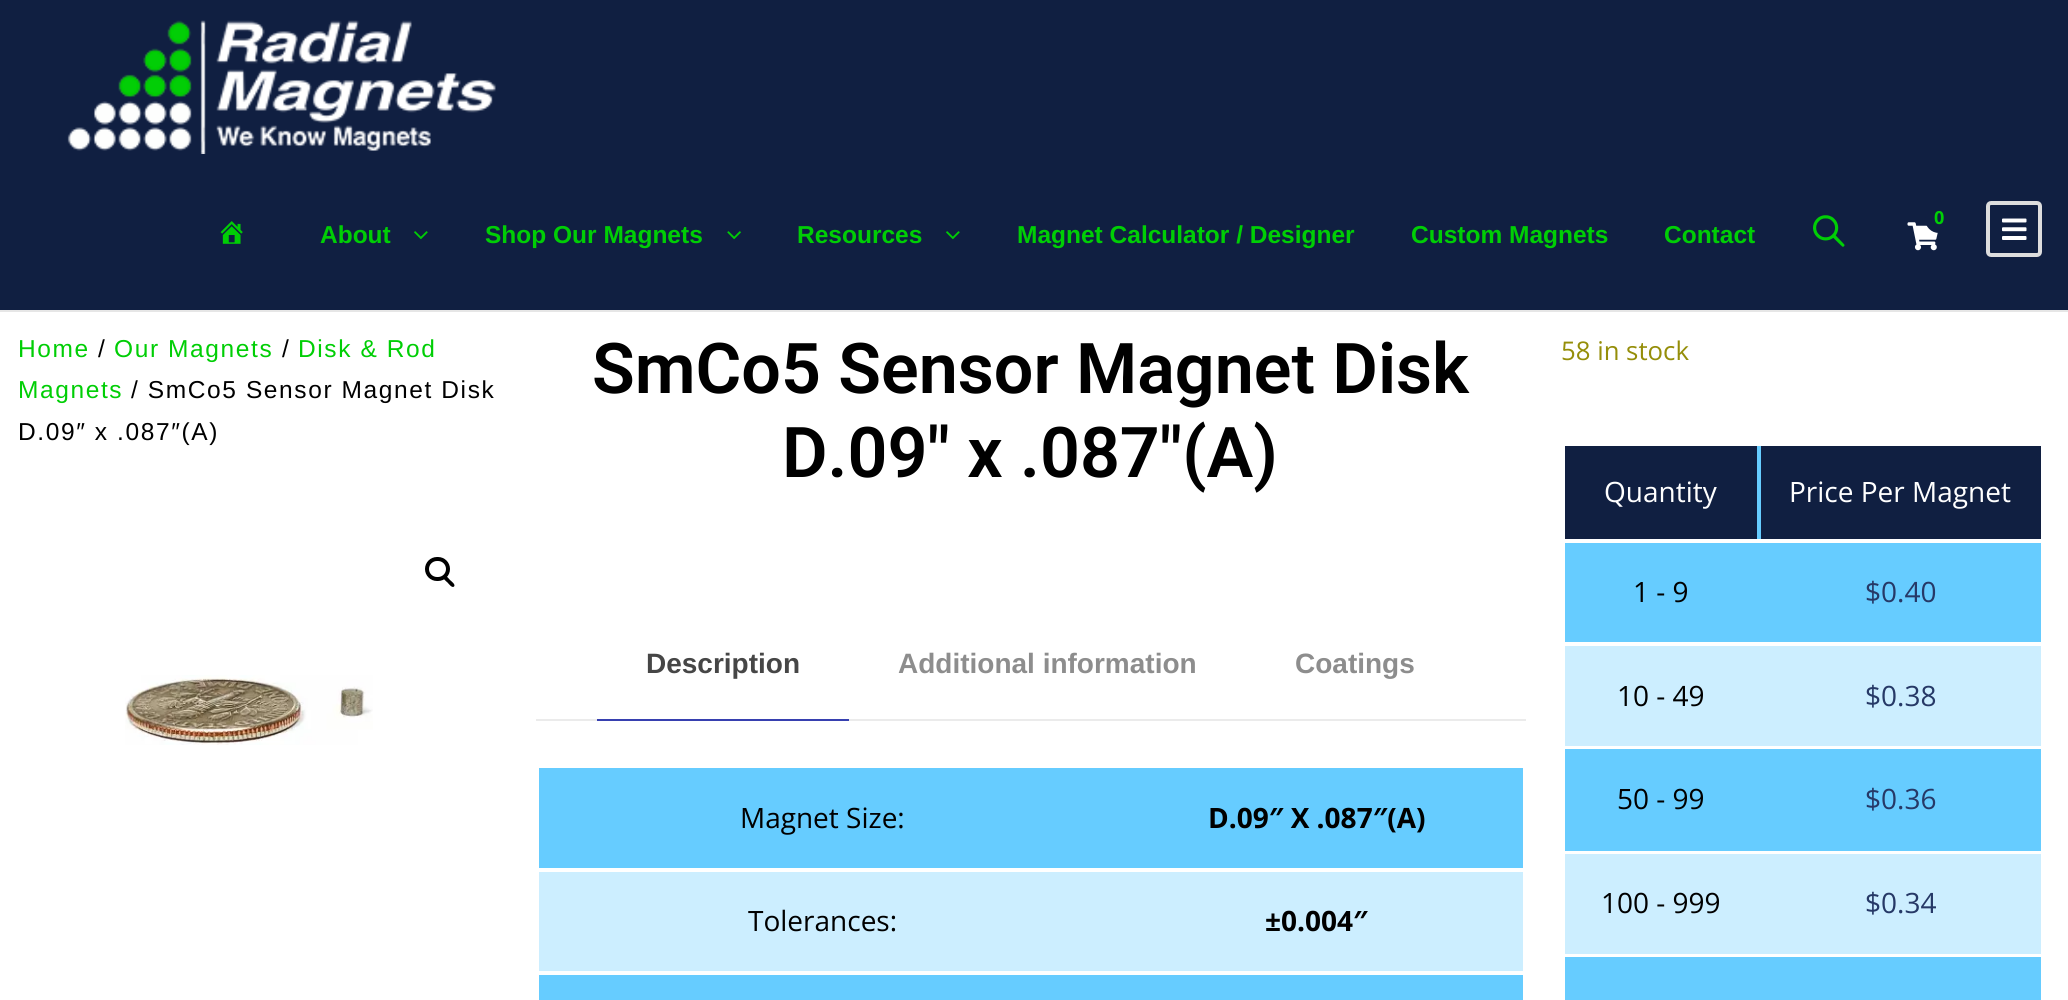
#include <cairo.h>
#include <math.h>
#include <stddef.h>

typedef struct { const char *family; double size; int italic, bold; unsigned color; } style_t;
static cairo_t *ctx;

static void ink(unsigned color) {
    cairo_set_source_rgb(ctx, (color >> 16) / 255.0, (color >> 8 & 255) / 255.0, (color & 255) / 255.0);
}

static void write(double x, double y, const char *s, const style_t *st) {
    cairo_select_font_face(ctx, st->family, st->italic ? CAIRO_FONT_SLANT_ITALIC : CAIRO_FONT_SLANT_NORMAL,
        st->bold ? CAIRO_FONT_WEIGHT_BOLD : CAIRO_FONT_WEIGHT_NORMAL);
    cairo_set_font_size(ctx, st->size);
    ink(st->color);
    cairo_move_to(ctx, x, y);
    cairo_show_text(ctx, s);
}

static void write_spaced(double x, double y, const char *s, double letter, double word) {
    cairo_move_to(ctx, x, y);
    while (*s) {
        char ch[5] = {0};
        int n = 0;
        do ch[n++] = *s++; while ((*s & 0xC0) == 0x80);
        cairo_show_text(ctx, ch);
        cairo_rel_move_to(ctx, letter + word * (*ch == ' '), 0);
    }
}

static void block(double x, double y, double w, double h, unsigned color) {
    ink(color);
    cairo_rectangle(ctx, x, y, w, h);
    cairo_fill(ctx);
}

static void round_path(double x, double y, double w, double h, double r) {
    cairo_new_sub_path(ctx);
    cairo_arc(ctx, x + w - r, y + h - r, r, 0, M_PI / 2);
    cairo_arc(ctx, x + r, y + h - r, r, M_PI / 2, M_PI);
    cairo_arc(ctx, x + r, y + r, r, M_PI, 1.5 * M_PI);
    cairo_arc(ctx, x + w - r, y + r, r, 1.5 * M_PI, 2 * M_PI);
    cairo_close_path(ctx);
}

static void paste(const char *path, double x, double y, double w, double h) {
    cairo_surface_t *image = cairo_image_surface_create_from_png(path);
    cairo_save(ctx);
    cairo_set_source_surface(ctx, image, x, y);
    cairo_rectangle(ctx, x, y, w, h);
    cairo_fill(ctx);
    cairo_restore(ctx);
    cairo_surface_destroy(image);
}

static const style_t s1 = {"Open Sans", 18, 0, 1, 0x00ce05};
static const style_t s2 = {"Liberation Sans", 24.5, 0, 1, 0x00ce05};
static const style_t s3 = {"Roboto SemiBold", 70, 0, 0, 0x000000};
static const style_t s4 = {"Liberation Sans", 28, 0, 1, 0x464646};
static const style_t s5 = {"Liberation Sans", 28, 0, 1, 0x8d8d8d};
static const style_t s6 = {"Open Sans", 28, 0, 0, 0x000000};
static const style_t s7 = {"Open Sans", 28, 0, 1, 0x000000};
static const style_t s8 = {"Open Sans", 25.75, 0, 0, 0x958e09};
static const style_t s9 = {"Open Sans", 28, 0, 0, 0xffffff};
static const style_t s10 = {"Open Sans", 28, 0, 0, 0x263967};

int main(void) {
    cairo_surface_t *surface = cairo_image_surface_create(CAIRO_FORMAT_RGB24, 2068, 1000);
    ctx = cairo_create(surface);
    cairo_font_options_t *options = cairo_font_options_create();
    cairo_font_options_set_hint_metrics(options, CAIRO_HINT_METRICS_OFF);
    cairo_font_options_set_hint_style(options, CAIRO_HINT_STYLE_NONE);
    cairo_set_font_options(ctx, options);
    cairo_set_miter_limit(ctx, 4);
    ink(0xffffff);
    cairo_paint(ctx);
    block(0, 0, 2068, 310, 0x101f41);
    paste("pic1.png", 67, 20, 429, 134);
    paste("pic2.png", 1907, 222, 31, 29);
    cairo_arc(ctx, 1939, 219, 14, 0, 2 * M_PI);
    cairo_fill(ctx);
    write(1934, 224, "0", &s1);
    round_path(1988, 203, 52, 52, 3);
    ink(0xdddddd);
    cairo_set_line_width(ctx, 4);
    cairo_stroke(ctx);
    paste("pic3.png", 2002, 218, 25, 22);
    paste("pic4.png", 220, 221, 23, 23);
    write(320, 243, "About", &s2);
    paste("pic5.png", 414, 231, 14, 9);
    write(485, 243, "Shop Our Magnets", &s2);
    paste("pic6.png", 727, 231, 14, 9);
    write(797, 243, "Resources", &s2);
    paste("pic5.png", 946, 231, 14, 9);
    write(1017, 243, "Magnet Calculator / Designer", &s2);
    write(1411, 243, "Custom Magnets", &s2);
    write(1664, 243, "Contact", &s2);
    paste("pic7.png", 1813, 215, 32, 32);
    block(0, 310, 2068, 2, 0xe6e6e6);
    cairo_select_font_face(ctx, "Liberation Sans", CAIRO_FONT_SLANT_NORMAL, CAIRO_FONT_WEIGHT_NORMAL);
    ink(0x00ce05);
    write_spaced(18, 357, "Home", 1.6, 0);
    ink(0x000000);
    write_spaced(98, 357, "/", 1.6, 0);
    ink(0x00ce05);
    write_spaced(114, 357, "Our Magnets", 1.6, 0);
    ink(0x000000);
    write_spaced(282, 357, "/", 1.6, 0);
    ink(0x00ce05);
    write_spaced(298, 357, "Disk & Rod", 1.6, 0);
    write_spaced(18, 398, "Magnets", 1.6, 0);
    ink(0x000000);
    write_spaced(131, 398, "/ SmCo5 Sensor Magnet Disk", 1.6, 0);
    write_spaced(18, 440, "D.09″ x .087″(A)", 1.6, 0);
    round_path(427, 559, 21, 20, 10);
    cairo_stroke(ctx);
    cairo_new_path(ctx);
    cairo_move_to(ctx, 444, 576.5);
    cairo_curve_to(ctx, 446, 574.5, 449, 579, 450, 580);
    cairo_curve_to(ctx, 451, 581, 456, 584.5, 454, 586.5);
    cairo_curve_to(ctx, 452, 588.5, 448.5, 583.5, 447.5, 582.5);
    cairo_curve_to(ctx, 446.5, 581.5, 442, 578.5, 444, 576.5);
    cairo_close_path(ctx);
    cairo_fill(ctx);
    paste("pic8.png", 125, 675, 248, 70);
    write(592, 393, "SmCo5 Sensor Magnet Disk", &s3);
    write(782, 477, "D.09″ x .087″(A)", &s3);
    block(536, 719, 990, 2, 0xebebeb);
    write(646, 673, "Description", &s4);
    write(898, 673, "Additional information", &s5);
    write(1295, 673, "Coatings", &s5);
    block(597, 719, 252, 2, 0x3740b0);
    block(539, 768, 984, 100, 0x66ccff);
    write(740, 828, "Magnet Size:", &s6);
    write(1208, 828, "D.09″ X .087″(A)", &s7);
    block(539, 872, 984, 99, 0xcceeff);
    write(748, 931, "Tolerances:", &s6);
    write(1265, 931, "±0.004″", &s7);
    block(539, 975, 984, 25, 0x66ccff);
    write(1561, 360, "58 in stock", &s8);
    block(1757, 446, 4, 93, 0x66ccff);
    block(1565, 446, 192, 93, 0x101f41);
    write(1604, 502, "Quantity", &s9);
    block(1761, 446, 280, 93, 0x101f41);
    write(1789, 502, "Price Per Magnet", &s9);
    block(1565, 543, 476, 99, 0x66ccff);
    write(1633, 602, "1 - 9", &s6);
    write(1865, 602, "$0.40", &s10);
    block(1565, 646, 476, 100, 0xcceeff);
    write(1617, 706, "10 - 49", &s6);
    write(1865, 706, "$0.38", &s10);
    block(1565, 749, 476, 102, 0x66ccff);
    write(1617, 809, "50 - 99", &s6);
    write(1865, 809, "$0.36", &s10);
    block(1565, 854, 476, 100, 0xcceeff);
    write(1601, 913, "100 - 999", &s6);
    write(1865, 913, "$0.34", &s10);
    block(1565, 957, 476, 43, 0x66ccff);
    cairo_surface_write_to_png(surface, "screenshot.png");
    cairo_font_options_destroy(options);
    cairo_destroy(ctx);
    cairo_surface_destroy(surface);
    return 0;
}
